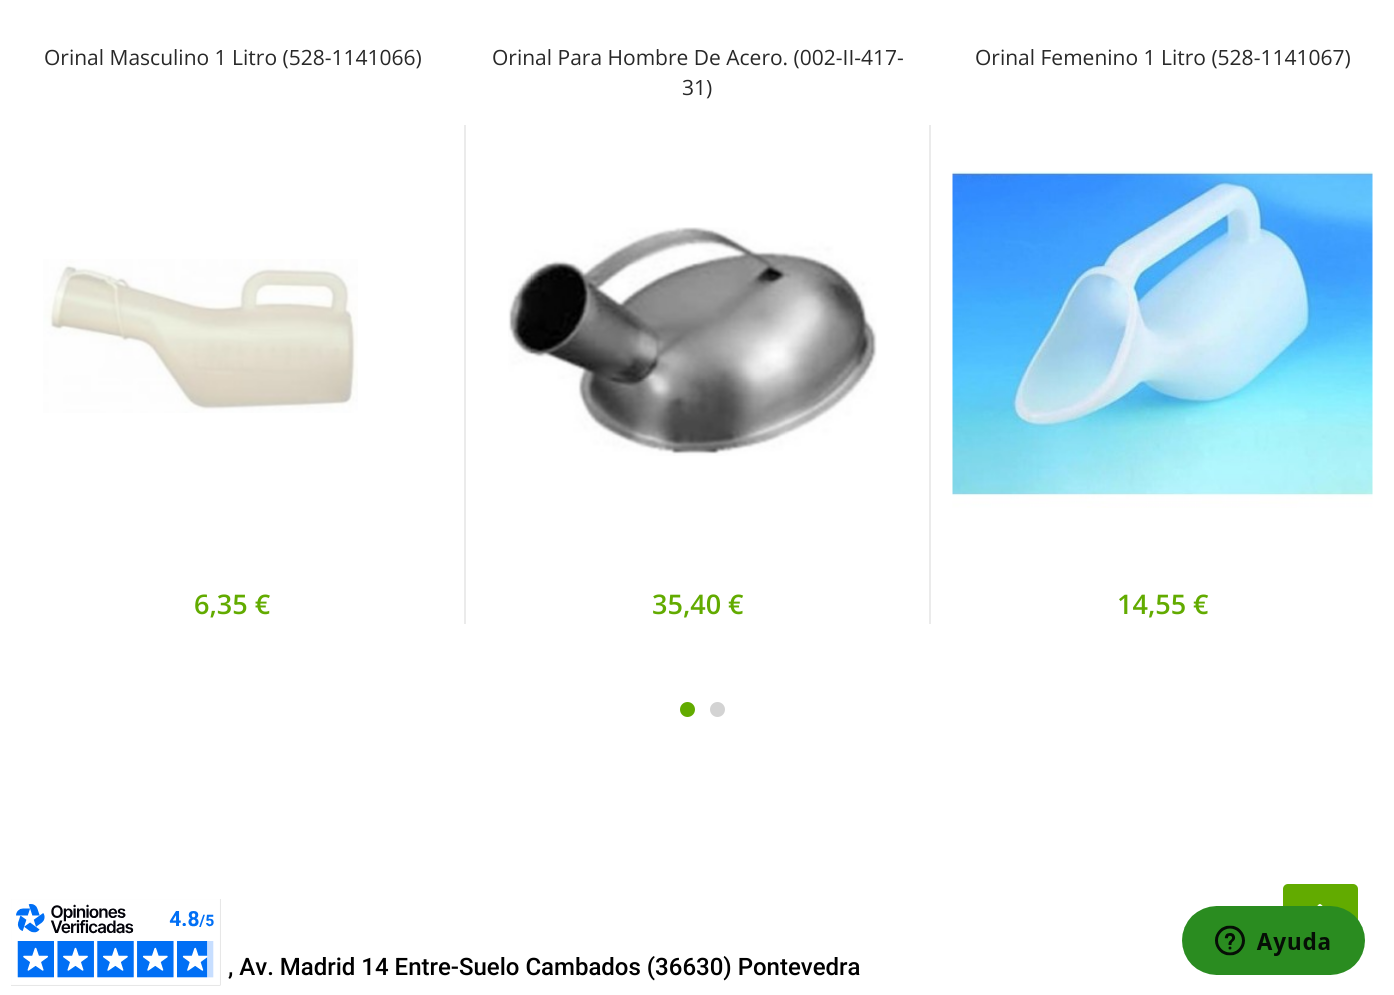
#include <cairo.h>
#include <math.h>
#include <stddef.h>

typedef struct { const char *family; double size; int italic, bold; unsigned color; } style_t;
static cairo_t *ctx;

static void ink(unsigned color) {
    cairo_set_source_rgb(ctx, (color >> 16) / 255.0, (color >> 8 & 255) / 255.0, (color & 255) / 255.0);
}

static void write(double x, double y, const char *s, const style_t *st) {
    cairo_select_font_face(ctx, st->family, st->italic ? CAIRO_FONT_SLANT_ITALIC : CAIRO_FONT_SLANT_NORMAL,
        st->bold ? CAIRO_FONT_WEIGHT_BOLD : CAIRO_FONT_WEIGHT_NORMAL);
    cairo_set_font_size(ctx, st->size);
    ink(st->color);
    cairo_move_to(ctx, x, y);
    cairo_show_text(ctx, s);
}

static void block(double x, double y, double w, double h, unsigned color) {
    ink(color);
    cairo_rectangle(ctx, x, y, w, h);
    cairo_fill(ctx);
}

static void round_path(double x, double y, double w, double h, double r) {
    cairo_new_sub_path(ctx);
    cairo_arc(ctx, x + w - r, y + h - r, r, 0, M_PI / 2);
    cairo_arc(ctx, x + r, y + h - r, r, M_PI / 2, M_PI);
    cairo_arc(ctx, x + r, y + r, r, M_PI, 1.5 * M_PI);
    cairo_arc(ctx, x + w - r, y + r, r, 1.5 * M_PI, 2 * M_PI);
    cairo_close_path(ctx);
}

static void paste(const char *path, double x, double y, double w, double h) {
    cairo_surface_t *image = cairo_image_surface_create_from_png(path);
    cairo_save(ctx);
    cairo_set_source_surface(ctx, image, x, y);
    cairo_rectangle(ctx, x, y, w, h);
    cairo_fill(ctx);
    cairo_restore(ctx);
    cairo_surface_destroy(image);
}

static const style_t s1 = {"Open Sans", 21, 0, 0, 0x282828};
static const style_t s2 = {"Open Sans SemiBold", 27, 0, 0, 0x62ab00};
static const style_t s3 = {"Roboto Medium", 24, 0, 0, 0x000000};

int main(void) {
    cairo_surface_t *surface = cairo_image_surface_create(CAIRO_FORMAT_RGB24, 1394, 995);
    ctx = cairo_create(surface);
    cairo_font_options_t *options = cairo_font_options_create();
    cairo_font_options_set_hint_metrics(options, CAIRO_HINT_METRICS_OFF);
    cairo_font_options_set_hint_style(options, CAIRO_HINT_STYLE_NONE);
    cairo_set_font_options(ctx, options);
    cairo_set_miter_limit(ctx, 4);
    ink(0xffffff);
    cairo_paint(ctx);
    write(44, 65, "Orinal Masculino 1 Litro (528-1141066)", &s1);
    paste("pic1.png", 43, 259, 315, 154);
    block(464, 125, 2, 499, 0xebebeb);
    write(194, 614, "6,35 €", &s2);
    write(492, 65, "Orinal Para Hombre De Acero. (002-II-417-", &s1);
    write(682, 95, "31)", &s1);
    paste("pic2.png", 508, 227, 369, 229);
    block(929, 125, 2, 499, 0xebebeb);
    write(652, 614, "35,40 €", &s2);
    write(975, 65, "Orinal Femenino 1 Litro (528-1141067)", &s1);
    paste("pic3.png", 952, 171, 421, 337);
    write(1117, 614, "14,55 €", &s2);
    cairo_new_path(ctx);
    cairo_arc(ctx, 687.5, 709.5, 7.5, 0, 2 * M_PI);
    cairo_fill(ctx);
    ink(0xd3d3d3);
    cairo_arc(ctx, 717.5, 709.5, 7.5, 0, 2 * M_PI);
    cairo_fill(ctx);
    write(228, 975, ", Av. Madrid 14 Entre-Suelo Cambados (36630) Pontevedra", &s3);
    paste("pic4.png", 11, 899, 210, 87);
    ink(0x62ab00);
    round_path(1283, 884, 75, 75, 5);
    cairo_fill(ctx);
    paste("pic5.png", 1317, 904, 6, 2);
    paste("pic6.png", 1182, 906, 183, 69);
    cairo_surface_write_to_png(surface, "screenshot.png");
    cairo_font_options_destroy(options);
    cairo_destroy(ctx);
    cairo_surface_destroy(surface);
    return 0;
}
